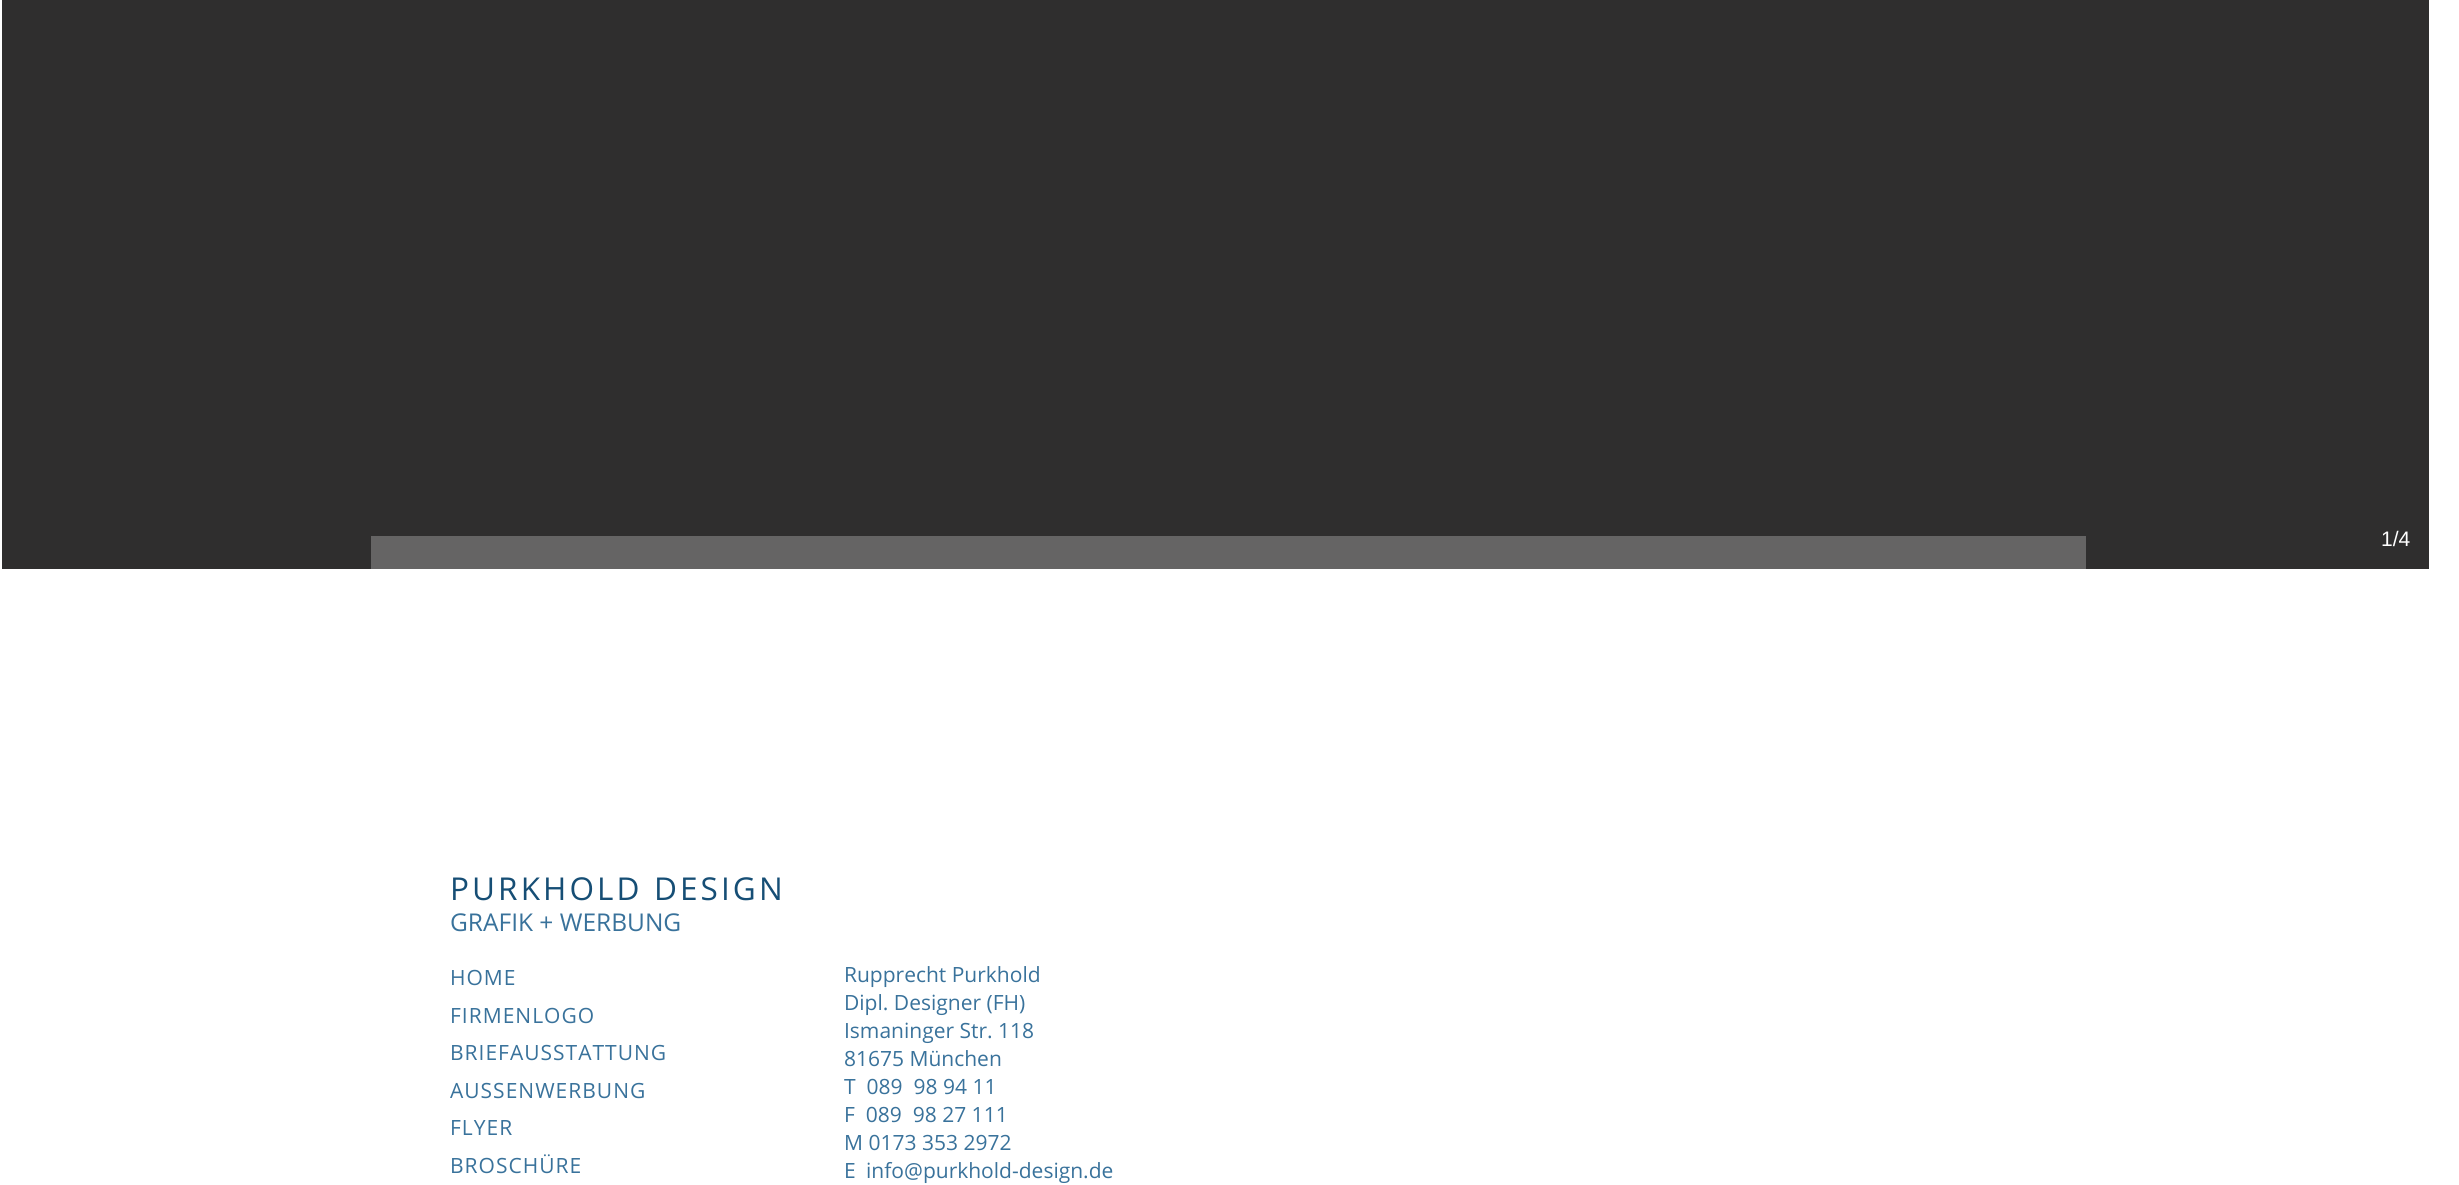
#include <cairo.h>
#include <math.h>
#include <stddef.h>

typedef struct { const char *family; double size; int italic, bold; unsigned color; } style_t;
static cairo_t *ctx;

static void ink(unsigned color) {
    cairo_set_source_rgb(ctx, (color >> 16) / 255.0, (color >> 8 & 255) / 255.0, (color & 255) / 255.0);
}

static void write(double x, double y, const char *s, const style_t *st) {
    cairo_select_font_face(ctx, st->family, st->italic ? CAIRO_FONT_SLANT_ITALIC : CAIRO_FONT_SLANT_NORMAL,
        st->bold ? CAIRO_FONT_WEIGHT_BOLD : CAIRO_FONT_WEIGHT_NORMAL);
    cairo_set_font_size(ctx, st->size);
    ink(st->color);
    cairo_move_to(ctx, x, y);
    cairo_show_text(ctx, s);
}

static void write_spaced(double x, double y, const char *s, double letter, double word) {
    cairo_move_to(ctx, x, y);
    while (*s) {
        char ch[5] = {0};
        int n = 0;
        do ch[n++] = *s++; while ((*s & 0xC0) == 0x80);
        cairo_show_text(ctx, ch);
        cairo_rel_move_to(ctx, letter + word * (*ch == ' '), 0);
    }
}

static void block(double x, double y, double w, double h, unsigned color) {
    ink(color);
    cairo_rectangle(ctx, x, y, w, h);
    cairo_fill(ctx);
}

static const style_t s1 = {"Liberation Sans", 21, 0, 0, 0xffffff};
static const style_t s2 = {"Open Sans", 24.5, 0, 0, 0x39729b};
static const style_t s3 = {"Open Sans", 21, 0, 0, 0x39729b};

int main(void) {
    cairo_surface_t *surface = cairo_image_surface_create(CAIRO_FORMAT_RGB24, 2459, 1185);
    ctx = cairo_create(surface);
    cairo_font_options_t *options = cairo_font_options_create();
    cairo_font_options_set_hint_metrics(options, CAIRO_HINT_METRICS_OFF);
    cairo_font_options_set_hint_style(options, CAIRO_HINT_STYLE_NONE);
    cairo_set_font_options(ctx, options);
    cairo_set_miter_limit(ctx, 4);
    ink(0xffffff);
    cairo_paint(ctx);
    block(2, 0, 2427, 569, 0x2f2e2e);
    block(371, 536, 1715, 33, 0x656464);
    write(2381, 546, "1/4", &s1);
    cairo_select_font_face(ctx, "Open Sans", CAIRO_FONT_SLANT_NORMAL, CAIRO_FONT_WEIGHT_NORMAL);
    cairo_set_font_size(ctx, 31.5);
    ink(0x164e75);
    write_spaced(450, 900, "PURKHOLD DESIGN", 3.1, 0);
    write(450, 931, "GRAFIK + WERBUNG", &s2);
    cairo_set_font_size(ctx, 21);
    write_spaced(450, 985, "HOME", 1, 0);
    write_spaced(450, 1023, "FIRMENLOGO", 1, 0);
    write_spaced(450, 1060, "BRIEFAUSSTATTUNG", 1, 0);
    write_spaced(450, 1098, "AUSSENWERBUNG", 1, 0);
    write_spaced(450, 1135, "FLYER", 1, 0);
    write_spaced(450, 1173, "BROSCHÜRE", 1, 0);
    write(844, 982, "Rupprecht Purkhold", &s3);
    write(844, 1010, "Dipl. Designer (FH)", &s3);
    write(844, 1038, "Ismaninger Str. 118", &s3);
    write(844, 1066, "81675 München", &s3);
    write(844, 1094, "T  089  98 94 11", &s3);
    write(844, 1122, "F  089  98 27 111", &s3);
    write(844, 1150, "M 0173 353 2972", &s3);
    write(844, 1178, "E", &s3);
    write(866, 1178, "info@purkhold-design.de", &s3);
    cairo_surface_write_to_png(surface, "screenshot.png");
    cairo_font_options_destroy(options);
    cairo_destroy(ctx);
    cairo_surface_destroy(surface);
    return 0;
}
